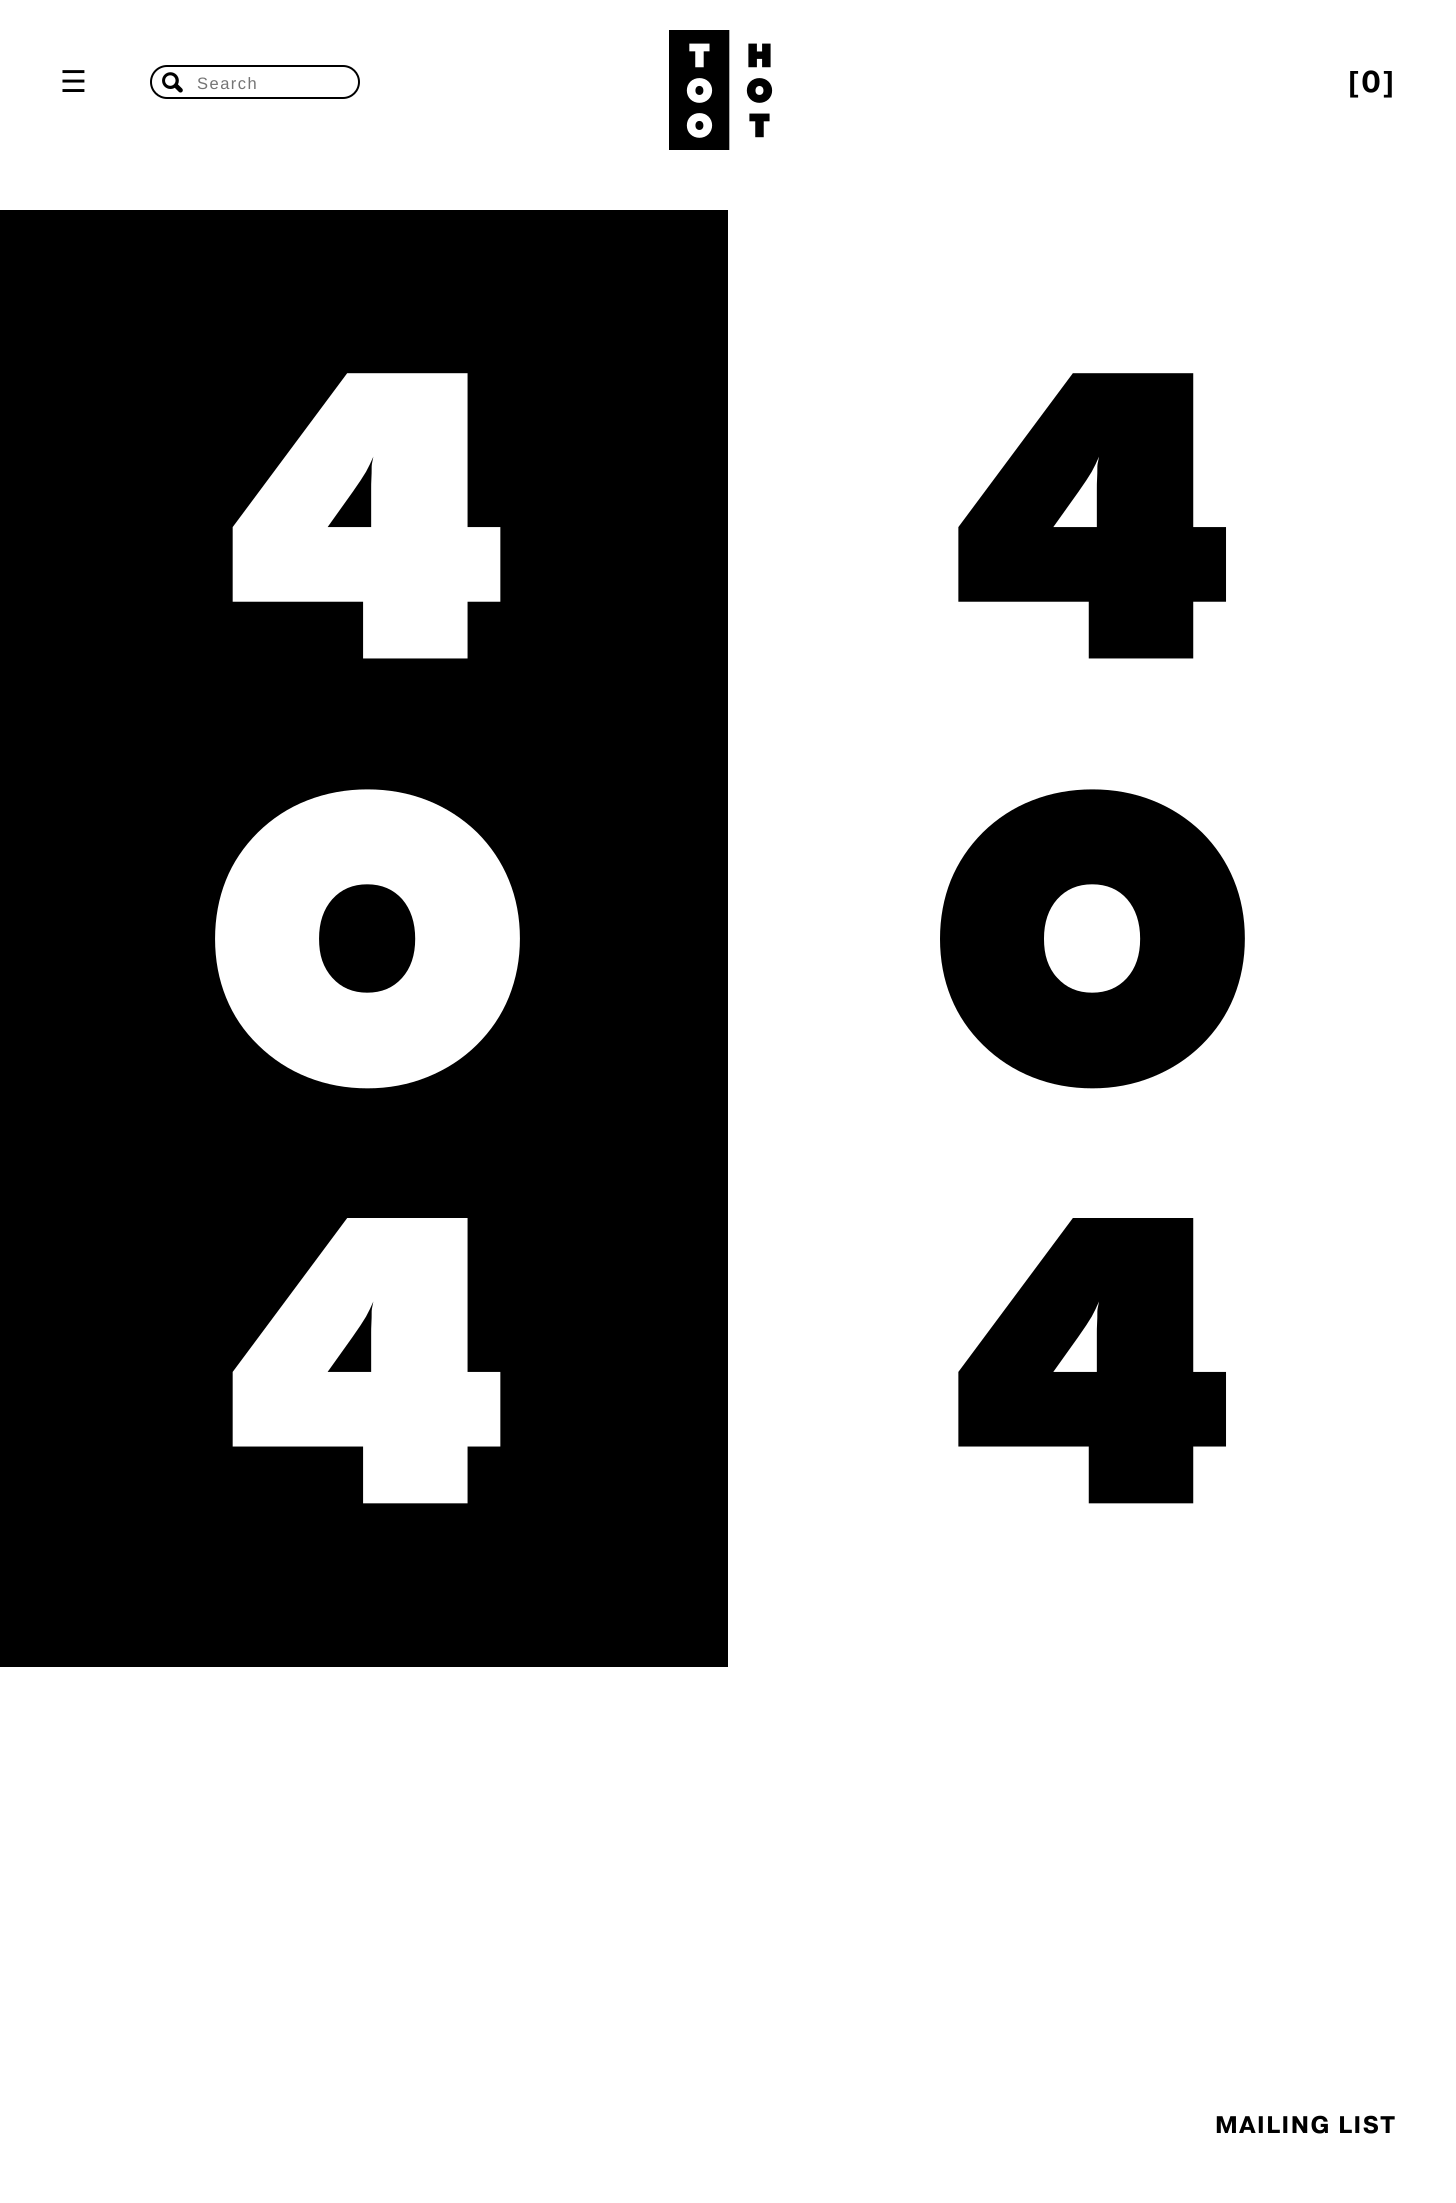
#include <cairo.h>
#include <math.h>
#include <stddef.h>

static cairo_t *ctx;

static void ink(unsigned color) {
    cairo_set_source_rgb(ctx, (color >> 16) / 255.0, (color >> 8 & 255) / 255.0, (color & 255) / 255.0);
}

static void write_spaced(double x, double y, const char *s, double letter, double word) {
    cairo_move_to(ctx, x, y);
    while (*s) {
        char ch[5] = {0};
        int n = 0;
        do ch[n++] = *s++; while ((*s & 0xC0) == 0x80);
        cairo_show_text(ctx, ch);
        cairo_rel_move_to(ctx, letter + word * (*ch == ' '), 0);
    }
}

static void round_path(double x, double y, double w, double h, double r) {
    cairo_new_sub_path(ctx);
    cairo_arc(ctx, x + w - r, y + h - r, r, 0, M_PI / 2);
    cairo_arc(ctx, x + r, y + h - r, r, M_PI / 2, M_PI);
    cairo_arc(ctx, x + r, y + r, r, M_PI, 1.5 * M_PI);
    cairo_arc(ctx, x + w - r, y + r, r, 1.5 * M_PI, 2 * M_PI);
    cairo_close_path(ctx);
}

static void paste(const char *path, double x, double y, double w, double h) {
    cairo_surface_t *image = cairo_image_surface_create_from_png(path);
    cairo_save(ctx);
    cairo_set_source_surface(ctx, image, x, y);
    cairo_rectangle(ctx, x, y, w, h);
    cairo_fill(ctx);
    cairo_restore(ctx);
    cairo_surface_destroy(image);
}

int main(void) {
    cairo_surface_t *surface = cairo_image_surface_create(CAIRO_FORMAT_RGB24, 1456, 2203);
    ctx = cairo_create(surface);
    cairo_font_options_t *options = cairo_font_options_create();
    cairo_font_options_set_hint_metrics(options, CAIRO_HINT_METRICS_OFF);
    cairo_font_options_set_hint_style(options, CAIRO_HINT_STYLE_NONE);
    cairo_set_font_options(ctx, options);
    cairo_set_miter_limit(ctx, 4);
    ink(0xffffff);
    cairo_paint(ctx);
    cairo_select_font_face(ctx, "DejaVu Sans", CAIRO_FONT_SLANT_NORMAL, CAIRO_FONT_WEIGHT_NORMAL);
    cairo_set_font_size(ctx, 30);
    ink(0x000000);
    write_spaced(60, 92, "☰", 1.5, 0);
    round_path(151, 66, 208, 32, 16);
    cairo_stroke(ctx);
    paste("pic1.png", 162, 72, 21, 21);
    cairo_select_font_face(ctx, "Liberation Sans", CAIRO_FONT_SLANT_NORMAL, CAIRO_FONT_WEIGHT_NORMAL);
    cairo_set_font_size(ctx, 16.5);
    ink(0x757575);
    write_spaced(197, 89, "Search", 1.5, 0);
    paste("pic2.png", 669, 30, 104, 120);
    cairo_select_font_face(ctx, "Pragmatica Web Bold", CAIRO_FONT_SLANT_NORMAL, CAIRO_FONT_WEIGHT_BOLD);
    cairo_set_font_size(ctx, 30);
    ink(0x000000);
    write_spaced(1347, 92, "[0]", 1.5, 0);
    paste("pic3.png", 0, 210, 1245, 1457);
    cairo_set_font_size(ctx, 24);
    write_spaced(1215, 2133, "MAILING LIST", 1.5, 0);
    cairo_surface_write_to_png(surface, "screenshot.png");
    cairo_font_options_destroy(options);
    cairo_destroy(ctx);
    cairo_surface_destroy(surface);
    return 0;
}
